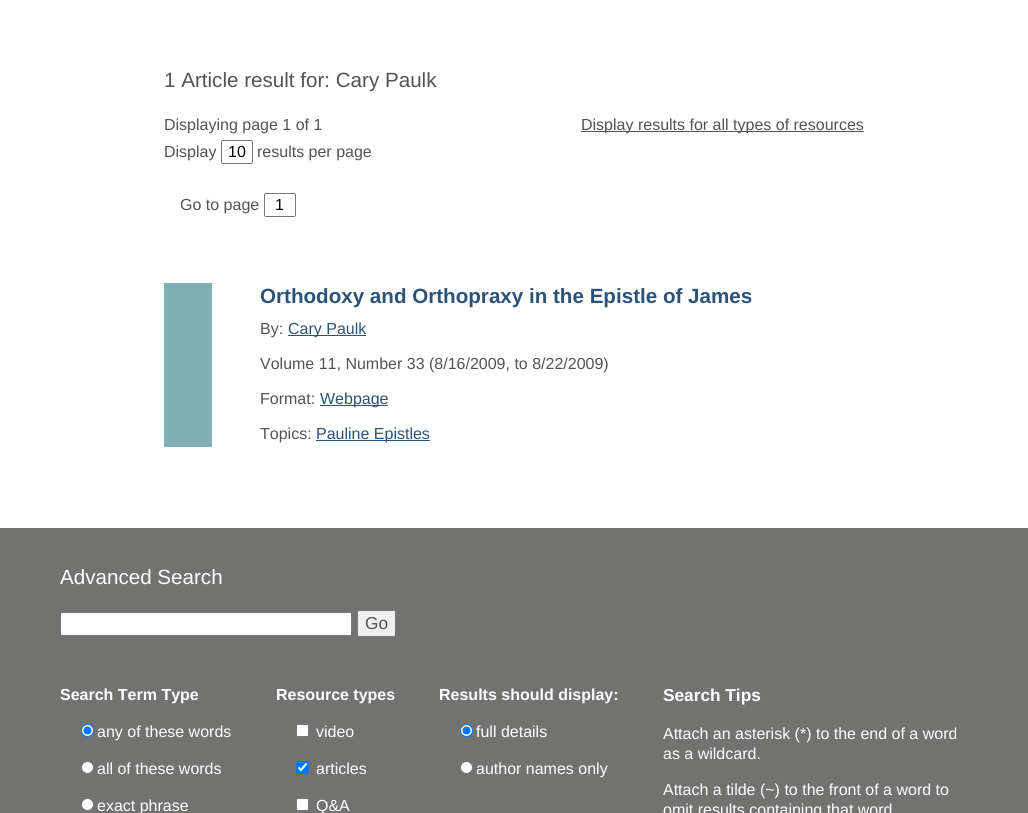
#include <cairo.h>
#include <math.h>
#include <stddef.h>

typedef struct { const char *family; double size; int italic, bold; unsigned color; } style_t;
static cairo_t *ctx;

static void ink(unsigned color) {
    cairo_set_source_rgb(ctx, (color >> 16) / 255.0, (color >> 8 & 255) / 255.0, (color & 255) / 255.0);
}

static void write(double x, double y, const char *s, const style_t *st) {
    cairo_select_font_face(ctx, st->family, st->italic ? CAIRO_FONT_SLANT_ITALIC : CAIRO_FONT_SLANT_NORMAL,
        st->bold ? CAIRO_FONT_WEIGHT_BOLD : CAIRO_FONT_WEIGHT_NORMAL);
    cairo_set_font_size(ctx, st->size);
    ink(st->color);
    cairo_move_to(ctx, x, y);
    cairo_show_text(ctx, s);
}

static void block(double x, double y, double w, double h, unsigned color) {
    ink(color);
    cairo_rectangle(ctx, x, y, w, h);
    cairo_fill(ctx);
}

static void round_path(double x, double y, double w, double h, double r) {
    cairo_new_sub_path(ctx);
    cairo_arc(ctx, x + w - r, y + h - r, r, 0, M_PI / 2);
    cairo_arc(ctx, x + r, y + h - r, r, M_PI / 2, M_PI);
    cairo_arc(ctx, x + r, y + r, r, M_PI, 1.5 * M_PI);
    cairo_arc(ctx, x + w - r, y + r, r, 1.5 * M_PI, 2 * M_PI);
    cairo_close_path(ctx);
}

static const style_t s1 = {"Liberation Sans", 20.6, 0, 0, 0x535352};
static const style_t s2 = {"Liberation Sans", 16, 0, 0, 0x535352};
static const style_t s3 = {"Liberation Sans", 16, 0, 0, 0x000000};
static const style_t s4 = {"Liberation Sans", 20.6, 0, 1, 0x2c5376};
static const style_t s5 = {"Liberation Sans", 16, 0, 0, 0x2c5376};
static const style_t s6 = {"Liberation Sans", 20.6, 0, 0, 0xffffff};
static const style_t s7 = {"Liberation Sans", 17.25, 0, 0, 0x535352};
static const style_t s8 = {"Liberation Sans", 16, 0, 1, 0xffffff};
static const style_t s9 = {"Liberation Sans", 16, 0, 0, 0xffffff};
static const style_t s10 = {"Liberation Sans", 17.25, 0, 1, 0xffffff};

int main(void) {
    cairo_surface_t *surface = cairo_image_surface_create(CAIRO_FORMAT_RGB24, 1028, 813);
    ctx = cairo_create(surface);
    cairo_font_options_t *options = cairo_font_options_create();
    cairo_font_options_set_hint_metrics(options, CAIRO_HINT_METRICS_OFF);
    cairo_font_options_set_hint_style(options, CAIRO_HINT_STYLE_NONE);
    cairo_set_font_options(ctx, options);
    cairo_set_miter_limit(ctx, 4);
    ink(0xffffff);
    cairo_paint(ctx);
    write(164, 87, "1 Article result for: Cary Paulk", &s1);
    write(164, 130, "Displaying page 1 of 1", &s2);
    block(581, 131, 283, 1, 0x535352);
    write(581, 130, "Display results for all types of resources", &s2);
    write(164, 157, "Display", &s2);
    round_path(221.5, 140.5, 31, 23, 1.5);
    ink(0x767676);
    cairo_set_line_width(ctx, 1);
    cairo_stroke(ctx);
    write(228, 157, "10", &s3);
    write(257, 157, "results per page", &s2);
    write(180, 210, "Go to page", &s2);
    round_path(264.5, 193.5, 31, 23, 1.5);
    ink(0x767676);
    cairo_stroke(ctx);
    write(275, 210, "1", &s3);
    block(164, 283, 48, 164, 0x81afb6);
    write(260, 303, "Orthodoxy and Orthopraxy in the Epistle of James", &s4);
    write(260, 334, "By:", &s2);
    block(288, 335, 78, 1, 0x2c5376);
    write(288, 334, "Cary Paulk", &s5);
    write(260, 369, "Volume 11, Number 33 (8/16/2009, to 8/22/2009)", &s2);
    write(260, 404, "Format:", &s2);
    block(320, 405, 68, 1, 0x2c5376);
    write(320, 404, "Webpage", &s5);
    write(260, 439, "Topics:", &s2);
    block(316, 440, 114, 1, 0x2c5376);
    write(316, 439, "Pauline Epistles", &s5);
    block(0, 528, 1028, 285, 0x727271);
    write(60, 584, "Advanced Search", &s6);
    round_path(60.5, 612.5, 291, 23, 1.5);
    cairo_fill_preserve(ctx);
    ink(0x767676);
    cairo_stroke(ctx);
    ink(0xefefef);
    round_path(357.5, 610.5, 38, 26, 1.5);
    cairo_fill_preserve(ctx);
    ink(0x767676);
    cairo_stroke(ctx);
    write(365, 629, "Go", &s7);
    write(60, 700, "Search Term Type", &s8);
    cairo_new_path(ctx);
    cairo_arc(ctx, 87.5, 730.5, 6, 0, 2 * M_PI);
    cairo_fill_preserve(ctx);
    ink(0x0075ff);
    cairo_stroke(ctx);
    cairo_arc(ctx, 87.5, 730.5, 4, 0, 2 * M_PI);
    cairo_fill(ctx);
    write(97, 737, "any of these words", &s9);
    cairo_new_path(ctx);
    cairo_arc(ctx, 87.5, 767.5, 6, 0, 2 * M_PI);
    cairo_fill_preserve(ctx);
    ink(0x767676);
    cairo_stroke(ctx);
    write(97, 774, "all of these words", &s9);
    cairo_new_path(ctx);
    cairo_arc(ctx, 87.5, 804.5, 6, 0, 2 * M_PI);
    cairo_fill_preserve(ctx);
    ink(0x767676);
    cairo_stroke(ctx);
    write(97, 811, "exact phrase", &s9);
    write(276, 700, "Resource types", &s8);
    round_path(296.5, 724.5, 12, 12, 1.5);
    cairo_fill_preserve(ctx);
    ink(0x767676);
    cairo_stroke(ctx);
    write(316, 737, "video", &s9);
    ink(0x0075ff);
    round_path(296, 761, 13, 13, 2);
    cairo_fill(ctx);
    cairo_new_path(ctx);
    cairo_move_to(ctx, 298.5, 767.5);
    cairo_line_to(ctx, 301, 770);
    cairo_line_to(ctx, 306.5, 763.5);
    ink(0xffffff);
    cairo_set_line_width(ctx, 2.1);
    cairo_stroke(ctx);
    write(316, 774, "articles", &s9);
    round_path(296.5, 798.5, 12, 12, 1.5);
    cairo_fill_preserve(ctx);
    ink(0x767676);
    cairo_set_line_width(ctx, 1);
    cairo_stroke(ctx);
    write(316, 811, "Q&A", &s9);
    write(439, 700, "Results should display:", &s8);
    cairo_new_path(ctx);
    cairo_arc(ctx, 466.5, 730.5, 6, 0, 2 * M_PI);
    cairo_fill_preserve(ctx);
    ink(0x0075ff);
    cairo_stroke(ctx);
    cairo_arc(ctx, 466.5, 730.5, 4, 0, 2 * M_PI);
    cairo_fill(ctx);
    write(476, 737, "full details", &s9);
    cairo_new_path(ctx);
    cairo_arc(ctx, 466.5, 767.5, 6, 0, 2 * M_PI);
    cairo_fill_preserve(ctx);
    ink(0x767676);
    cairo_stroke(ctx);
    write(476, 774, "author names only", &s9);
    write(663, 701, "Search Tips", &s10);
    write(663, 739, "Attach an asterisk (*) to the end of a word", &s9);
    write(663, 759, "as a wildcard.", &s9);
    write(663, 795, "Attach a tilde (~) to the front of a word to", &s9);
    write(663, 815, "omit results containing that word", &s9);
    cairo_surface_write_to_png(surface, "screenshot.png");
    cairo_font_options_destroy(options);
    cairo_destroy(ctx);
    cairo_surface_destroy(surface);
    return 0;
}
